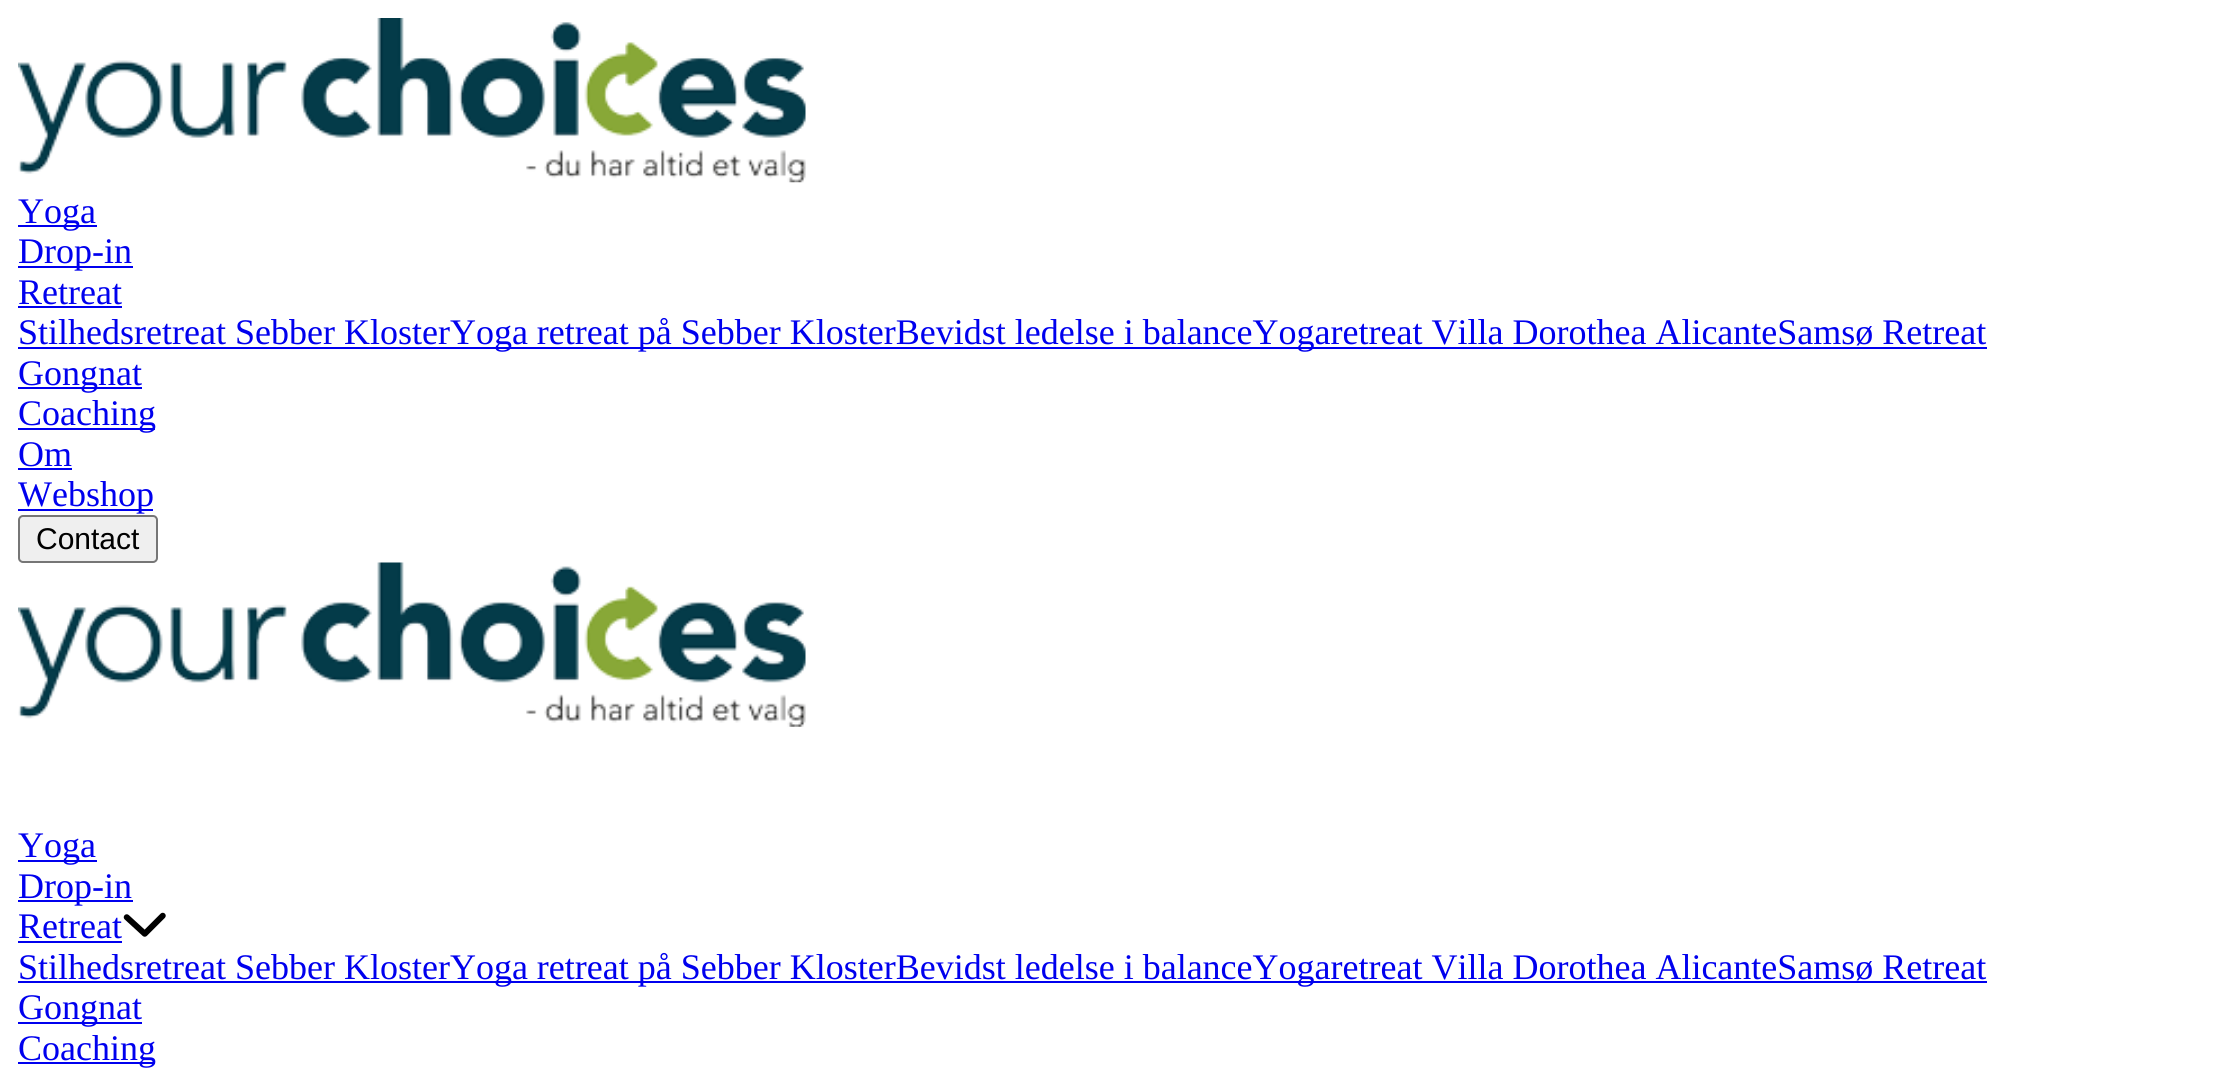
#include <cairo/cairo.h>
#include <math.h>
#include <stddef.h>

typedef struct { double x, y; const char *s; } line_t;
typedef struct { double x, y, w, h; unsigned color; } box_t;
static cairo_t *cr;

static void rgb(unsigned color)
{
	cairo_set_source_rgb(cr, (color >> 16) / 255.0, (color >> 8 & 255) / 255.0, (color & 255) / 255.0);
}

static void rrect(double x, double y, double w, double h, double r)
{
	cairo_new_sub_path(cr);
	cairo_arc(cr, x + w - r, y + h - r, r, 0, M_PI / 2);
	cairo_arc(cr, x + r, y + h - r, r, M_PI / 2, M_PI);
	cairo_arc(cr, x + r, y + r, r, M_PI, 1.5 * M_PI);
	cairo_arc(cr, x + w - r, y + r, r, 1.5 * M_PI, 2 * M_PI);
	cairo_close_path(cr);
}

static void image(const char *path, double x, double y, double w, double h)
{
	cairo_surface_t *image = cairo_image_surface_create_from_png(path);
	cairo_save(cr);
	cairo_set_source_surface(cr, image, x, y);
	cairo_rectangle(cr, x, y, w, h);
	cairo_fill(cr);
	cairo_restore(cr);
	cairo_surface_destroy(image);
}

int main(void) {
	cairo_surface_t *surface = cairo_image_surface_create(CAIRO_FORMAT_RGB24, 2238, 1083);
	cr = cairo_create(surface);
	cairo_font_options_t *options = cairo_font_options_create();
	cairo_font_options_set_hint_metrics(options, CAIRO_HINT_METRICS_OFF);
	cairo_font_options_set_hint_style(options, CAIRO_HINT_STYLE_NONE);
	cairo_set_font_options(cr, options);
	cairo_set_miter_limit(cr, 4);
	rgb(0xffffff);
	cairo_paint(cr);
	image("img/1.png", 18, 18, 788, 165);
	{
		static const box_t items[] = {
			{18, 225, 79, 2, 0x0000ee},
			{18, 266, 115, 2, 0x0000ee},
			{18, 306, 104, 2, 0x0000ee},
			{18, 347, 1969, 2, 0x0000ee},
			{18, 387, 124, 2, 0x0000ee},
			{18, 428, 137, 2, 0x0000ee},
			{18, 468, 54, 2, 0x0000ee},
			{18, 509, 135, 2, 0x0000ee},
		};
		for (size_t i = 0; i < sizeof items / sizeof *items; i++) {
			rgb(items[i].color);
			cairo_rectangle(cr, items[i].x, items[i].y, items[i].w, items[i].h);
			cairo_fill(cr);
		}
	}
	rgb(0xefefef);
	rrect(19, 516, 138, 46, 4);
	cairo_fill_preserve(cr);
	rgb(0x767676);
	cairo_stroke(cr);
	image("img/2.png", 18, 562, 788, 165);
	{
		static const box_t items[] = {
			{18, 860, 79, 2, 0x0000ee},
			{18, 900, 115, 2, 0x0000ee},
			{18, 941, 104, 2, 0x0000ee},
		};
		for (size_t i = 0; i < sizeof items / sizeof *items; i++) {
			rgb(items[i].color);
			cairo_rectangle(cr, items[i].x, items[i].y, items[i].w, items[i].h);
			cairo_fill(cr);
		}
	}
	image("img/3.png", 123, 912, 43, 25);
	{
		static const box_t items[] = {
			{18, 981, 1969, 2, 0x0000ee},
			{18, 1022, 124, 2, 0x0000ee},
			{18, 1062, 137, 2, 0x0000ee},
		};
		for (size_t i = 0; i < sizeof items / sizeof *items; i++) {
			rgb(items[i].color);
			cairo_rectangle(cr, items[i].x, items[i].y, items[i].w, items[i].h);
			cairo_fill(cr);
		}
	}
	cairo_select_font_face(cr, "Liberation Serif", CAIRO_FONT_SLANT_NORMAL, CAIRO_FONT_WEIGHT_NORMAL);
	cairo_set_font_size(cr, 36);
	{
		static const line_t items[] = {
			{18, 223, "Yoga"},
			{18, 263, "Drop-in"},
			{18, 304, "Retreat"},
			{18, 344, "Stilhedsretreat Sebber KlosterYoga retreat på Sebber KlosterBevidst ledelse i balanceYogaretreat Villa Dorothea AlicanteSamsø Retreat"},
			{18, 385, "Gongnat"},
			{18, 425, "Coaching"},
			{18, 466, "Om"},
			{18, 506, "Webshop"},
		};
		for (size_t i = 0; i < sizeof items / sizeof *items; i++) {
			cairo_move_to(cr, items[i].x, items[i].y);
			cairo_show_text(cr, items[i].s);
		}
	}
	cairo_select_font_face(cr, "Liberation Sans", CAIRO_FONT_SLANT_NORMAL, CAIRO_FONT_WEIGHT_NORMAL);
	cairo_set_font_size(cr, 30);
	rgb(0x000000);
	cairo_move_to(cr, 36, 549);
	cairo_show_text(cr, "Contact");
	cairo_select_font_face(cr, "Liberation Serif", CAIRO_FONT_SLANT_NORMAL, CAIRO_FONT_WEIGHT_NORMAL);
	cairo_set_font_size(cr, 36);
	rgb(0x0000ee);
	{
		static const line_t items[] = {
			{18, 857, "Yoga"},
			{18, 898, "Drop-in"},
			{18, 938, "Retreat"},
			{18, 979, "Stilhedsretreat Sebber KlosterYoga retreat på Sebber KlosterBevidst ledelse i balanceYogaretreat Villa Dorothea AlicanteSamsø Retreat"},
			{18, 1019, "Gongnat"},
			{18, 1060, "Coaching"},
		};
		for (size_t i = 0; i < sizeof items / sizeof *items; i++) {
			cairo_move_to(cr, items[i].x, items[i].y);
			cairo_show_text(cr, items[i].s);
		}
	}
	cairo_surface_write_to_png(surface, "page.png");
	cairo_font_options_destroy(options);
	cairo_destroy(cr);
	cairo_surface_destroy(surface);
	return 0;
}
